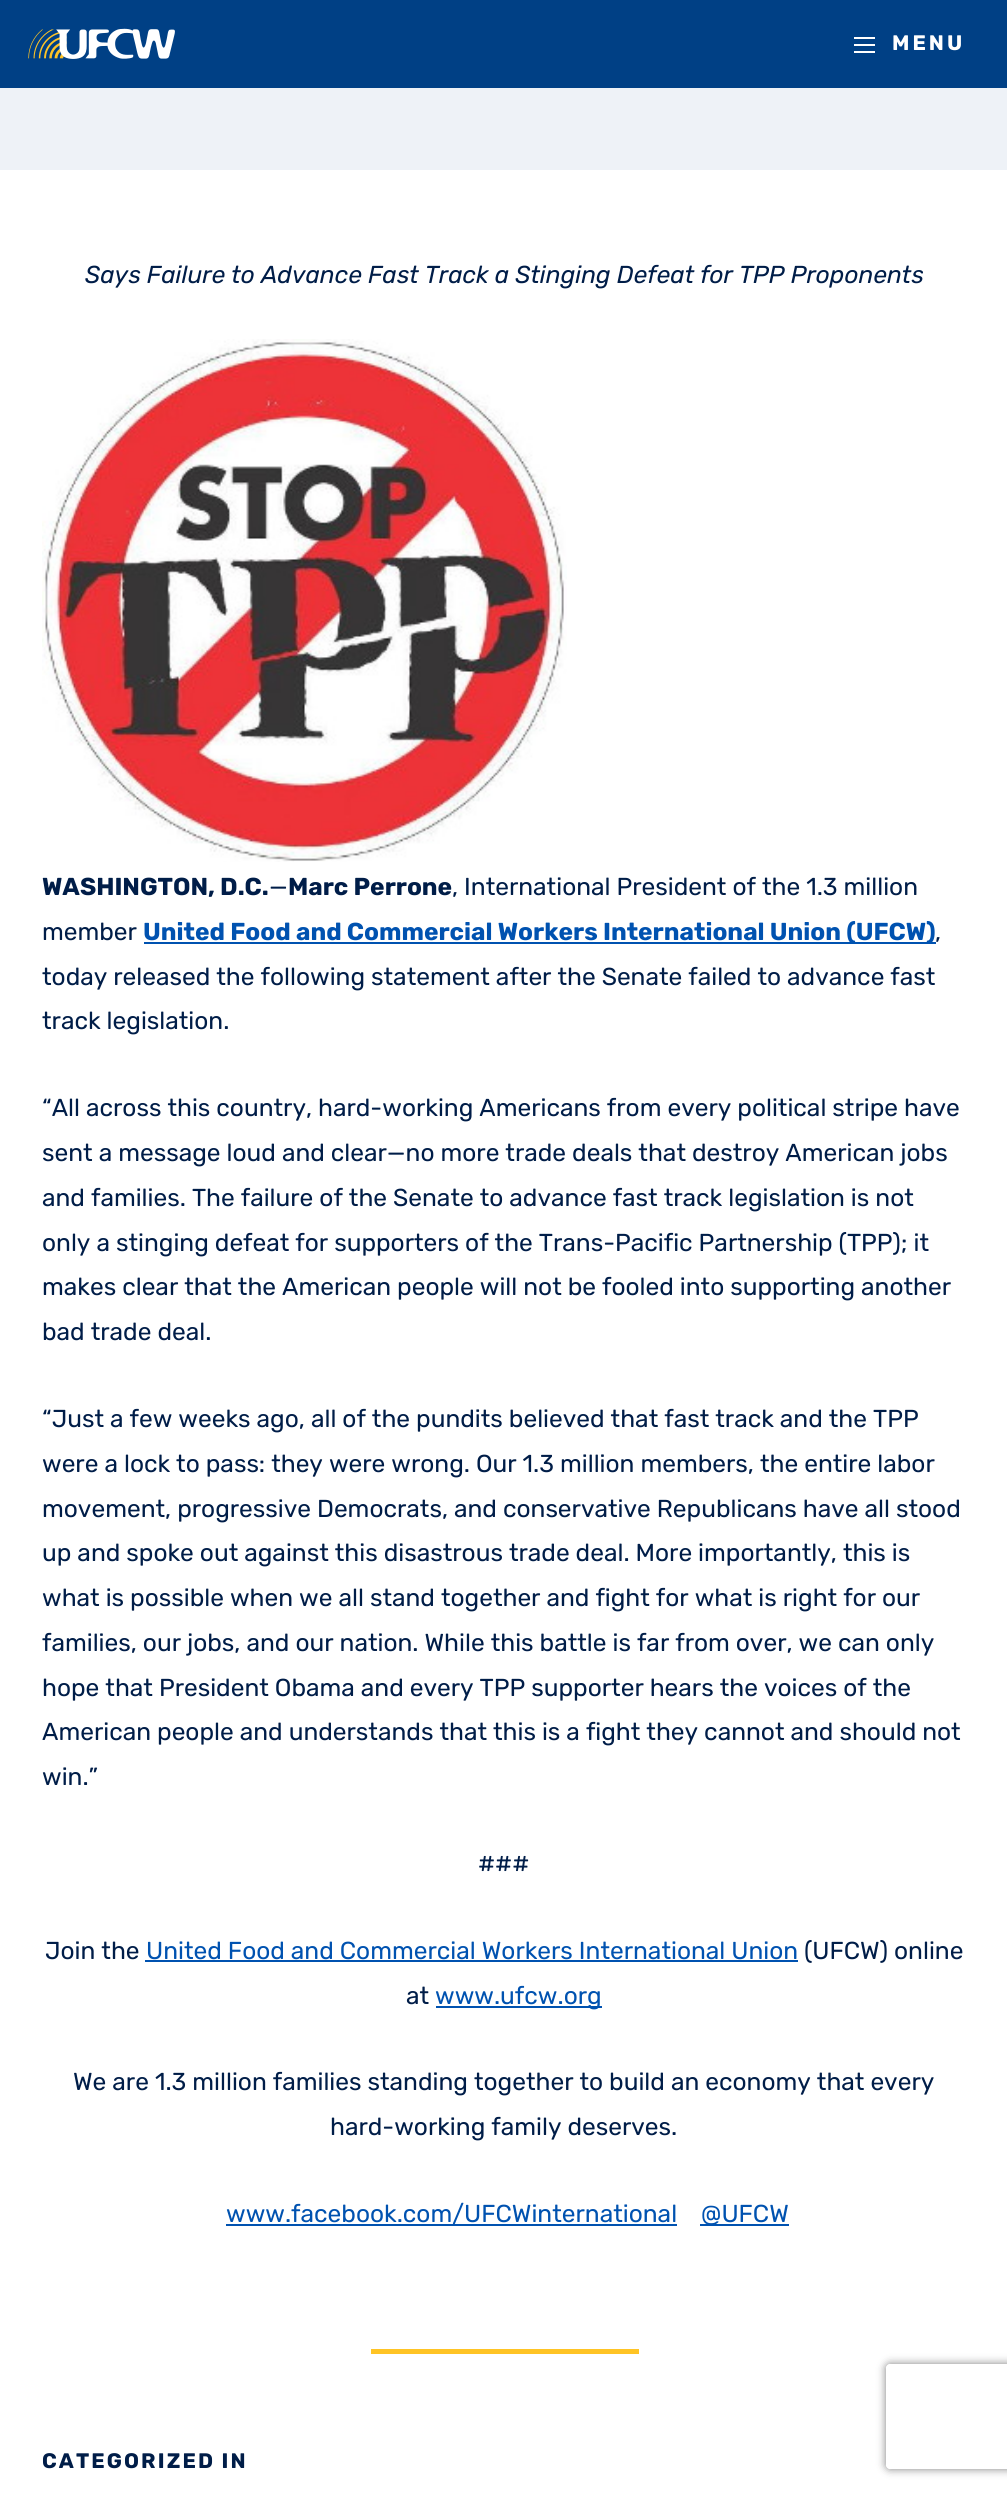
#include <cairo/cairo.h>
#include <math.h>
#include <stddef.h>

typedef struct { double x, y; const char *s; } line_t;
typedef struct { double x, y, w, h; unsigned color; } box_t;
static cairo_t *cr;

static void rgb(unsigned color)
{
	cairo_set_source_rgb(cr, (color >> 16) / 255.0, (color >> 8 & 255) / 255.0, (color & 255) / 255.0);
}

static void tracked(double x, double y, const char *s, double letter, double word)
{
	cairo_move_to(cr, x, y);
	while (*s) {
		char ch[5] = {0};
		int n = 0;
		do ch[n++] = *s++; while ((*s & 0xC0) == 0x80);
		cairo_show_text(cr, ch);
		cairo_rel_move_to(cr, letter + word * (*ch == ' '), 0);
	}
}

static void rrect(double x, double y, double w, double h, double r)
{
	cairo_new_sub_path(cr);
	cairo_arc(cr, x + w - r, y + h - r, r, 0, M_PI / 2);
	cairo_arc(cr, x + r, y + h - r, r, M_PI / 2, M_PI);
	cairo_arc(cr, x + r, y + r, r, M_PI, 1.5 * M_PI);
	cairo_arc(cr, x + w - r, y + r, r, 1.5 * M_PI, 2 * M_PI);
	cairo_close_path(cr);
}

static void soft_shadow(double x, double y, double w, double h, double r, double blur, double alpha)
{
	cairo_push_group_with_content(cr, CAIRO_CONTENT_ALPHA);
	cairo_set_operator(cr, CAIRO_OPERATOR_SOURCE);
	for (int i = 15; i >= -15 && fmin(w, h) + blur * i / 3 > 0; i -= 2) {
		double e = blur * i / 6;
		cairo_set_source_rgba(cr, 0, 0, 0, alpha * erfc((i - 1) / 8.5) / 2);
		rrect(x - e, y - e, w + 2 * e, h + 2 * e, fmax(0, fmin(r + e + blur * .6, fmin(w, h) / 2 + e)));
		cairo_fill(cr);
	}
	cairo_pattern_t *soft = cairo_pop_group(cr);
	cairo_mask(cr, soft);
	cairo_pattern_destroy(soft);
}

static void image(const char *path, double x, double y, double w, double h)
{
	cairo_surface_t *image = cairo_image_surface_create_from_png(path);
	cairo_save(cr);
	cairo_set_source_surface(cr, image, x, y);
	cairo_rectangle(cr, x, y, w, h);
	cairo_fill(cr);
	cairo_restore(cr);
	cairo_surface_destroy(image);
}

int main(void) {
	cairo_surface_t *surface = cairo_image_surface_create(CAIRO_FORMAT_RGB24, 1007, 2493);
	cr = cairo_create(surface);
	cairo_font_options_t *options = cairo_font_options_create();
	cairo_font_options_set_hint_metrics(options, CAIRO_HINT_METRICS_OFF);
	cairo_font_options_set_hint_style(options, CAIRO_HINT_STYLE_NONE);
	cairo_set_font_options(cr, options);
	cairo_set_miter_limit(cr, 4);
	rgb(0xffffff);
	cairo_paint(cr);
	rgb(0x004085);
	cairo_rectangle(cr, 0, 0, 1007, 88);
	cairo_fill(cr);
	image("img/1.png", 28, 28, 147, 31);
	{
		static const box_t items[] = {
			{854, 37, 21, 2, 0xffffff},
			{854, 44, 21, 2, 0xffffff},
			{854, 51, 21, 2, 0xffffff},
			{0, 88, 1007, 82, 0xeef2f7},
		};
		for (size_t i = 0; i < sizeof items / sizeof *items; i++) {
			rgb(items[i].color);
			cairo_rectangle(cr, items[i].x, items[i].y, items[i].w, items[i].h);
			cairo_fill(cr);
		}
	}
	image("img/2.png", 42, 339, 525, 523);
	{
		static const box_t items[] = {
			{144, 942, 792, 2, 0x0052b0},
			{145, 1960, 653, 2, 0x0052b0},
			{436, 2006, 166, 2, 0x0052b0},
			{226, 2224, 451, 2, 0x0052b0},
			{700, 2224, 89, 2, 0x0052b0},
			{371, 2349, 268, 5, 0xffc425},
		};
		for (size_t i = 0; i < sizeof items / sizeof *items; i++) {
			rgb(items[i].color);
			cairo_rectangle(cr, items[i].x, items[i].y, items[i].w, items[i].h);
			cairo_fill(cr);
		}
	}
	cairo_save(cr);
	cairo_set_fill_rule(cr, CAIRO_FILL_RULE_EVEN_ODD);
	cairo_new_path(cr);
	cairo_move_to(cr, 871, 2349);
	cairo_line_to(cr, 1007, 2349);
	cairo_line_to(cr, 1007, 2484);
	cairo_line_to(cr, 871, 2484);
	cairo_close_path(cr);
	cairo_move_to(cr, 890, 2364);
	cairo_line_to(cr, 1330, 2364);
	cairo_curve_to(cr, 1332, 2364, 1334, 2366, 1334, 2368);
	cairo_line_to(cr, 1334, 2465);
	cairo_curve_to(cr, 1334, 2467, 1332, 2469, 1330, 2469);
	cairo_line_to(cr, 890, 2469);
	cairo_curve_to(cr, 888, 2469, 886, 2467, 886, 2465);
	cairo_line_to(cr, 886, 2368);
	cairo_curve_to(cr, 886, 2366, 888, 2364, 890, 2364);
	cairo_close_path(cr);
	cairo_clip(cr);
	rgb(0x808080);
	soft_shadow(886, 2364, 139, 105, 4, 4.5, 1);
	cairo_restore(cr);
	cairo_select_font_face(cr, "Rubik", CAIRO_FONT_SLANT_NORMAL, CAIRO_FONT_WEIGHT_BOLD);
	cairo_set_font_size(cr, 21);
	rgb(0xffffff);
	tracked(892, 50, "MENU", 3, 0);
	cairo_select_font_face(cr, "Rubik", CAIRO_FONT_SLANT_ITALIC, CAIRO_FONT_WEIGHT_NORMAL);
	cairo_set_font_size(cr, 24.5);
	rgb(0x001d48);
	cairo_move_to(cr, 85, 283);
	cairo_show_text(cr, "Says Failure to Advance Fast Track a Stinging Defeat for TPP Proponents");
	cairo_select_font_face(cr, "Rubik", CAIRO_FONT_SLANT_NORMAL, CAIRO_FONT_WEIGHT_BOLD);
	cairo_move_to(cr, 42, 895);
	cairo_show_text(cr, "WASHINGTON, D.C.");
	cairo_select_font_face(cr, "Rubik", CAIRO_FONT_SLANT_NORMAL, CAIRO_FONT_WEIGHT_NORMAL);
	cairo_move_to(cr, 269, 895);
	cairo_show_text(cr, "—");
	cairo_select_font_face(cr, "Rubik", CAIRO_FONT_SLANT_NORMAL, CAIRO_FONT_WEIGHT_BOLD);
	cairo_move_to(cr, 288, 895);
	cairo_show_text(cr, "Marc Perrone");
	cairo_select_font_face(cr, "Rubik", CAIRO_FONT_SLANT_NORMAL, CAIRO_FONT_WEIGHT_NORMAL);
	cairo_move_to(cr, 452, 895);
	cairo_show_text(cr, ", International President of the 1.3 million");
	cairo_move_to(cr, 42, 940);
	cairo_show_text(cr, "member");
	cairo_select_font_face(cr, "Rubik", CAIRO_FONT_SLANT_NORMAL, CAIRO_FONT_WEIGHT_BOLD);
	rgb(0x0052b0);
	cairo_move_to(cr, 143, 940);
	cairo_show_text(cr, "United Food and Commercial Workers International Union (UFCW)");
	cairo_select_font_face(cr, "Rubik", CAIRO_FONT_SLANT_NORMAL, CAIRO_FONT_WEIGHT_NORMAL);
	rgb(0x001d48);
	{
		static const line_t items[] = {
			{935, 940, ","},
			{42, 985, "today released the following statement after the Senate failed to advance fast"},
			{42, 1029, "track legislation."},
			{42, 1116, "“All across this country, hard-working Americans from every political stripe have"},
			{42, 1161, "sent a message loud and clear—no more trade deals that destroy American jobs"},
			{42, 1206, "and families. The failure of the Senate to advance fast track legislation is not"},
			{42, 1251, "only a stinging defeat for supporters of the Trans-Pacific Partnership (TPP); it"},
			{42, 1295, "makes clear that the American people will not be fooled into supporting another"},
			{42, 1340, "bad trade deal."},
			{42, 1427, "“Just a few weeks ago, all of the pundits believed that fast track and the TPP"},
			{42, 1472, "were a lock to pass: they were wrong. Our 1.3 million members, the entire labor"},
			{42, 1517, "movement, progressive Democrats, and conservative Republicans have all stood"},
			{42, 1561, "up and spoke out against this disastrous trade deal. More importantly, this is"},
			{42, 1606, "what is possible when we all stand together and fight for what is right for our"},
			{42, 1651, "families, our jobs, and our nation. While this battle is far from over, we can only"},
			{42, 1696, "hope that President Obama and every TPP supporter hears the voices of the"},
			{42, 1740, "American people and understands that this is a fight they cannot and should not"},
			{42, 1785, "win.”"},
			{478, 1872, "###"},
			{45, 1959, "Join the"},
		};
		for (size_t i = 0; i < sizeof items / sizeof *items; i++) {
			cairo_move_to(cr, items[i].x, items[i].y);
			cairo_show_text(cr, items[i].s);
		}
	}
	rgb(0x0052b0);
	cairo_move_to(cr, 146, 1959);
	cairo_show_text(cr, "United Food and Commercial Workers International Union");
	rgb(0x001d48);
	cairo_move_to(cr, 804, 1959);
	cairo_show_text(cr, "(UFCW) online");
	cairo_move_to(cr, 406, 2004);
	cairo_show_text(cr, "at");
	rgb(0x0052b0);
	cairo_move_to(cr, 435, 2004);
	cairo_show_text(cr, "www.ufcw.org");
	rgb(0x001d48);
	cairo_move_to(cr, 73, 2090);
	cairo_show_text(cr, "We are 1.3 million families standing together to build an economy that every");
	cairo_move_to(cr, 330, 2135);
	cairo_show_text(cr, "hard-working family deserves.");
	rgb(0x0052b0);
	cairo_move_to(cr, 226, 2222);
	cairo_show_text(cr, "www.facebook.com/UFCWinternational");
	cairo_move_to(cr, 701, 2222);
	cairo_show_text(cr, "@UFCW");
	cairo_select_font_face(cr, "Rubik", CAIRO_FONT_SLANT_NORMAL, CAIRO_FONT_WEIGHT_BOLD);
	cairo_set_font_size(cr, 21);
	rgb(0x001d48);
	tracked(42, 2468, "CATEGORIZED IN", 2.1, 0);
	cairo_surface_write_to_png(surface, "page.png");
	cairo_font_options_destroy(options);
	cairo_destroy(cr);
	cairo_surface_destroy(surface);
	return 0;
}
